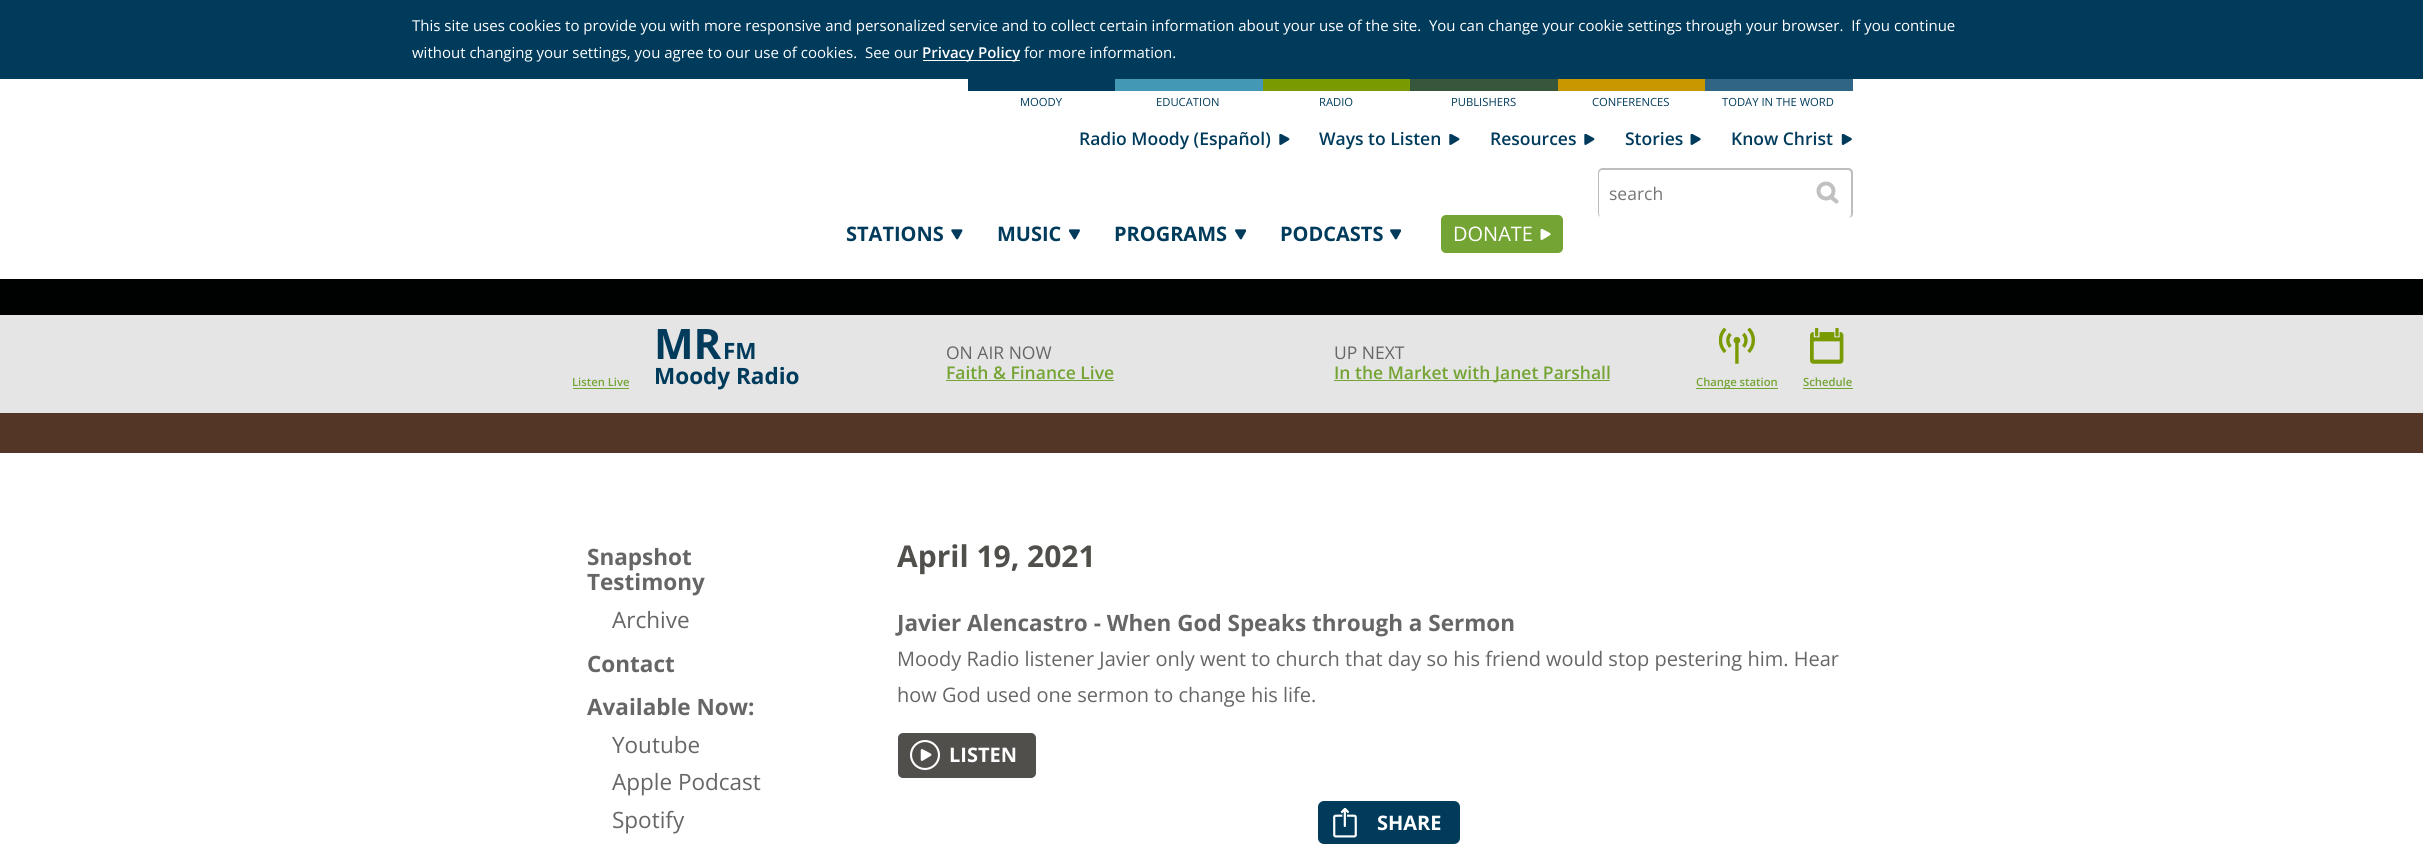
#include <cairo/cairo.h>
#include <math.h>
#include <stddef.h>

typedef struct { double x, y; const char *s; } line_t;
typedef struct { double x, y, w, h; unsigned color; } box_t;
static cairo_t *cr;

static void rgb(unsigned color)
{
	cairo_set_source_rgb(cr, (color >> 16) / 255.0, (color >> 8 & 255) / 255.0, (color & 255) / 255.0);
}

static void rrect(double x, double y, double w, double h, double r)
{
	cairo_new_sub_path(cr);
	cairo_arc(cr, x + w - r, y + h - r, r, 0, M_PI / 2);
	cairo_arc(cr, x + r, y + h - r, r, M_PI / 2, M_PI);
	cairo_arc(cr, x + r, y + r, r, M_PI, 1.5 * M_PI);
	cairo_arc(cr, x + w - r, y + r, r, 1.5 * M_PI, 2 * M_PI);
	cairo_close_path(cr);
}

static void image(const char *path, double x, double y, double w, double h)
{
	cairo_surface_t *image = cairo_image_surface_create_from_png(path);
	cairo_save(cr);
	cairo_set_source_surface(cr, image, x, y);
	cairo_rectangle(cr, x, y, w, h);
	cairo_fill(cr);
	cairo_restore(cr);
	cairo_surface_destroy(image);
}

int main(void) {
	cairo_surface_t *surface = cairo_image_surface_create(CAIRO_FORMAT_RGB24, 2423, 848);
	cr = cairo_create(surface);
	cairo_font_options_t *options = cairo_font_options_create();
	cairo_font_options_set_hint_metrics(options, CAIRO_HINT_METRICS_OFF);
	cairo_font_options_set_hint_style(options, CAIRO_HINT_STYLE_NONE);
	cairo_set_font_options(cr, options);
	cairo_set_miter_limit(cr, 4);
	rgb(0xffffff);
	cairo_paint(cr);
	{
		static const box_t items[] = {
			{0, 0, 2423, 79, 0x003b5c},
			{923, 60, 97, 1, 0xffffff},
			{968, 79, 147, 12, 0x003b5c},
			{1115, 79, 148, 12, 0x4298b5},
			{1263, 79, 147, 12, 0x7a9a01},
			{1410, 79, 148, 12, 0x36573b},
			{1558, 79, 147, 12, 0xc99700},
			{1705, 79, 148, 12, 0x316585},
		};
		for (size_t i = 0; i < sizeof items / sizeof *items; i++) {
			rgb(items[i].color);
			cairo_rectangle(cr, items[i].x, items[i].y, items[i].w, items[i].h);
			cairo_fill(cr);
		}
	}
	image("img/1.png", 1279, 134, 11, 11);
	image("img/1.png", 1449, 134, 11, 11);
	image("img/1.png", 1584, 134, 11, 11);
	image("img/2.png", 1690, 134, 11, 11);
	image("img/3.png", 1841, 134, 11, 11);
	image("img/4.png", 951, 229, 12, 11);
	image("img/5.png", 1069, 229, 11, 11);
	image("img/6.png", 1235, 229, 11, 11);
	image("img/6.png", 1390, 229, 11, 11);
	rgb(0x74a433);
	rrect(1441, 215, 122, 38, 5);
	cairo_fill(cr);
	image("img/7.png", 1540, 229, 11, 11);
	rgb(0xbdbdbd);
	cairo_new_path(cr);
	cairo_move_to(cr, 1602, 170);
	cairo_line_to(cr, 1848, 170);
	cairo_curve_to(cr, 1850, 170, 1851, 172, 1851, 174);
	cairo_line_to(cr, 1851, 214);
	cairo_curve_to(cr, 1851, 216, 1850, 218, 1848, 218);
	cairo_curve_to(cr, 1851, 218, 1853, 216, 1853, 213);
	cairo_line_to(cr, 1853, 173);
	cairo_curve_to(cr, 1853, 170, 1851, 168, 1848, 168);
	cairo_line_to(cr, 1603, 168);
	cairo_curve_to(cr, 1600, 168, 1598, 170, 1598, 173);
	cairo_line_to(cr, 1598, 213);
	cairo_curve_to(cr, 1598, 215, 1599, 216, 1600, 217);
	cairo_line_to(cr, 1599, 214);
	cairo_line_to(cr, 1599, 174);
	cairo_curve_to(cr, 1599, 172, 1600, 170, 1602, 170);
	cairo_close_path(cr);
	cairo_fill(cr);
	cairo_arc(cr, 1826, 191, 7.5, 0, 2 * M_PI);
	rgb(0xc0c0c0);
	cairo_set_line_width(cr, 4);
	cairo_stroke(cr);
	cairo_new_path(cr);
	cairo_move_to(cr, 1831, 197);
	cairo_line_to(cr, 1836.5, 201.5);
	cairo_set_line_cap(cr, CAIRO_LINE_CAP_ROUND);
	cairo_stroke(cr);
	{
		static const box_t items[] = {
			{0, 279, 2423, 36, 0x000201},
			{0, 315, 2423, 98, 0xe5e5e5},
			{573, 388, 56, 1, 0x74a433},
			{946, 380, 168, 1, 0x74a433},
			{1334, 380, 276, 1, 0x74a433},
		};
		for (size_t i = 0; i < sizeof items / sizeof *items; i++) {
			rgb(items[i].color);
			cairo_rectangle(cr, items[i].x, items[i].y, items[i].w, items[i].h);
			cairo_fill(cr);
		}
	}
	image("img/8.png", 1719, 328, 36, 36);
	cairo_rectangle(cr, 1696, 388, 82, 1);
	cairo_fill(cr);
	image("img/9.png", 1810, 328, 34, 36);
	cairo_rectangle(cr, 1803, 388, 50, 1);
	cairo_fill(cr);
	rgb(0x533626);
	cairo_rectangle(cr, 0, 413, 2423, 40);
	cairo_fill(cr);
	rgb(0x504f4b);
	rrect(898, 733, 138, 45, 5);
	cairo_fill(cr);
	image("img/10.png", 910, 740, 30, 30);
	rgb(0x003b5c);
	rrect(1318, 801, 142, 43, 6);
	cairo_fill(cr);
	image("img/11.png", 1333, 808, 24, 30);
	cairo_select_font_face(cr, "Open Sans", CAIRO_FONT_SLANT_NORMAL, CAIRO_FONT_WEIGHT_NORMAL);
	cairo_set_font_size(cr, 15);
	rgb(0xffffff);
	cairo_move_to(cr, 412, 31);
	cairo_show_text(cr, "This site uses cookies to provide you with more responsive and personalized service and to collect certain information about your use of the site.  You can change your cookie settings through your browser.  If you continue");
	cairo_move_to(cr, 412, 58);
	cairo_show_text(cr, "without changing your settings, you agree to our use of cookies.  See our");
	cairo_select_font_face(cr, "Open Sans SemiBold", CAIRO_FONT_SLANT_NORMAL, CAIRO_FONT_WEIGHT_NORMAL);
	cairo_move_to(cr, 922, 58);
	cairo_show_text(cr, "Privacy Policy");
	cairo_select_font_face(cr, "Open Sans", CAIRO_FONT_SLANT_NORMAL, CAIRO_FONT_WEIGHT_NORMAL);
	cairo_move_to(cr, 1024, 58);
	cairo_show_text(cr, "for more information.");
	cairo_set_font_size(cr, 11.25);
	rgb(0x003b5c);
	{
		static const line_t items[] = {
			{1020, 106, "MOODY"},
			{1156, 106, "EDUCATION"},
			{1319, 106, "RADIO"},
			{1451, 106, "PUBLISHERS"},
			{1592, 106, "CONFERENCES"},
			{1722, 106, "TODAY IN THE WORD"},
		};
		for (size_t i = 0; i < sizeof items / sizeof *items; i++) {
			cairo_move_to(cr, items[i].x, items[i].y);
			cairo_show_text(cr, items[i].s);
		}
	}
	cairo_select_font_face(cr, "Open Sans SemiBold", CAIRO_FONT_SLANT_NORMAL, CAIRO_FONT_WEIGHT_NORMAL);
	cairo_set_font_size(cr, 17.5);
	{
		static const line_t items[] = {
			{1079, 145, "Radio Moody (Español)"},
			{1319, 145, "Ways to Listen"},
			{1490, 145, "Resources"},
			{1625, 145, "Stories"},
			{1731, 145, "Know Christ"},
		};
		for (size_t i = 0; i < sizeof items / sizeof *items; i++) {
			cairo_move_to(cr, items[i].x, items[i].y);
			cairo_show_text(cr, items[i].s);
		}
	}
	cairo_select_font_face(cr, "Open Sans", CAIRO_FONT_SLANT_NORMAL, CAIRO_FONT_WEIGHT_BOLD);
	cairo_set_font_size(cr, 20);
	{
		static const line_t items[] = {
			{846, 241, "STATIONS"},
			{997, 241, "MUSIC"},
			{1114, 241, "PROGRAMS"},
			{1280, 241, "PODCASTS"},
		};
		for (size_t i = 0; i < sizeof items / sizeof *items; i++) {
			cairo_move_to(cr, items[i].x, items[i].y);
			cairo_show_text(cr, items[i].s);
		}
	}
	cairo_select_font_face(cr, "Open Sans", CAIRO_FONT_SLANT_NORMAL, CAIRO_FONT_WEIGHT_NORMAL);
	rgb(0xffffff);
	cairo_move_to(cr, 1453, 241);
	cairo_show_text(cr, "DONATE");
	cairo_set_font_size(cr, 17.5);
	rgb(0x757575);
	cairo_move_to(cr, 1609, 200);
	cairo_show_text(cr, "search");
	cairo_select_font_face(cr, "Open Sans SemiBold", CAIRO_FONT_SLANT_NORMAL, CAIRO_FONT_WEIGHT_NORMAL);
	cairo_set_font_size(cr, 11.25);
	rgb(0x74a433);
	cairo_move_to(cr, 572, 386);
	cairo_show_text(cr, "Listen Live");
	cairo_select_font_face(cr, "Open Sans", CAIRO_FONT_SLANT_NORMAL, CAIRO_FONT_WEIGHT_BOLD);
	cairo_set_font_size(cr, 42);
	rgb(0x003b5c);
	cairo_move_to(cr, 654, 359);
	cairo_show_text(cr, "MR");
	cairo_set_font_size(cr, 22.5);
	cairo_move_to(cr, 723, 359);
	cairo_show_text(cr, "FM");
	cairo_move_to(cr, 654, 384);
	cairo_show_text(cr, "Moody Radio");
	cairo_select_font_face(cr, "Open Sans", CAIRO_FONT_SLANT_NORMAL, CAIRO_FONT_WEIGHT_NORMAL);
	cairo_set_font_size(cr, 17.5);
	rgb(0x666666);
	cairo_move_to(cr, 946, 359);
	cairo_show_text(cr, "ON AIR NOW");
	cairo_select_font_face(cr, "Open Sans SemiBold", CAIRO_FONT_SLANT_NORMAL, CAIRO_FONT_WEIGHT_NORMAL);
	rgb(0x74a433);
	cairo_move_to(cr, 946, 379);
	cairo_show_text(cr, "Faith & Finance Live");
	cairo_select_font_face(cr, "Open Sans", CAIRO_FONT_SLANT_NORMAL, CAIRO_FONT_WEIGHT_NORMAL);
	rgb(0x666666);
	cairo_move_to(cr, 1334, 359);
	cairo_show_text(cr, "UP NEXT");
	cairo_select_font_face(cr, "Open Sans SemiBold", CAIRO_FONT_SLANT_NORMAL, CAIRO_FONT_WEIGHT_NORMAL);
	rgb(0x74a433);
	cairo_move_to(cr, 1334, 379);
	cairo_show_text(cr, "In the Market with Janet Parshall");
	cairo_set_font_size(cr, 11.25);
	cairo_move_to(cr, 1696, 386);
	cairo_show_text(cr, "Change station");
	cairo_move_to(cr, 1803, 386);
	cairo_show_text(cr, "Schedule");
	cairo_select_font_face(cr, "Open Sans", CAIRO_FONT_SLANT_NORMAL, CAIRO_FONT_WEIGHT_BOLD);
	cairo_set_font_size(cr, 22.5);
	rgb(0x666666);
	cairo_move_to(cr, 587, 565);
	cairo_show_text(cr, "Snapshot");
	cairo_move_to(cr, 587, 590);
	cairo_show_text(cr, "Testimony");
	cairo_select_font_face(cr, "Open Sans", CAIRO_FONT_SLANT_NORMAL, CAIRO_FONT_WEIGHT_NORMAL);
	cairo_move_to(cr, 612, 628);
	cairo_show_text(cr, "Archive");
	cairo_select_font_face(cr, "Open Sans", CAIRO_FONT_SLANT_NORMAL, CAIRO_FONT_WEIGHT_BOLD);
	cairo_move_to(cr, 587, 672);
	cairo_show_text(cr, "Contact");
	cairo_move_to(cr, 587, 715);
	cairo_show_text(cr, "Available Now:");
	cairo_select_font_face(cr, "Open Sans", CAIRO_FONT_SLANT_NORMAL, CAIRO_FONT_WEIGHT_NORMAL);
	{
		static const line_t items[] = {
			{612, 753, "Youtube"},
			{612, 790, "Apple Podcast"},
			{612, 828, "Spotify"},
		};
		for (size_t i = 0; i < sizeof items / sizeof *items; i++) {
			cairo_move_to(cr, items[i].x, items[i].y);
			cairo_show_text(cr, items[i].s);
		}
	}
	cairo_select_font_face(cr, "Open Sans", CAIRO_FONT_SLANT_NORMAL, CAIRO_FONT_WEIGHT_BOLD);
	cairo_set_font_size(cr, 30);
	rgb(0x504f4b);
	cairo_move_to(cr, 897, 567);
	cairo_show_text(cr, "April 19, 2021");
	cairo_set_font_size(cr, 22.5);
	rgb(0x666666);
	cairo_move_to(cr, 897, 631);
	cairo_show_text(cr, "Javier Alencastro - When God Speaks through a Sermon");
	cairo_select_font_face(cr, "Open Sans", CAIRO_FONT_SLANT_NORMAL, CAIRO_FONT_WEIGHT_NORMAL);
	cairo_set_font_size(cr, 20);
	cairo_move_to(cr, 897, 666);
	cairo_show_text(cr, "Moody Radio listener Javier only went to church that day so his friend would stop pestering him. Hear");
	cairo_move_to(cr, 897, 702);
	cairo_show_text(cr, "how God used one sermon to change his life.");
	cairo_select_font_face(cr, "Open Sans", CAIRO_FONT_SLANT_NORMAL, CAIRO_FONT_WEIGHT_BOLD);
	rgb(0xffffff);
	cairo_move_to(cr, 949, 762);
	cairo_show_text(cr, "LISTEN");
	cairo_move_to(cr, 1377, 830);
	cairo_show_text(cr, "SHARE");
	cairo_surface_write_to_png(surface, "page.png");
	cairo_font_options_destroy(options);
	cairo_destroy(cr);
	cairo_surface_destroy(surface);
	return 0;
}
